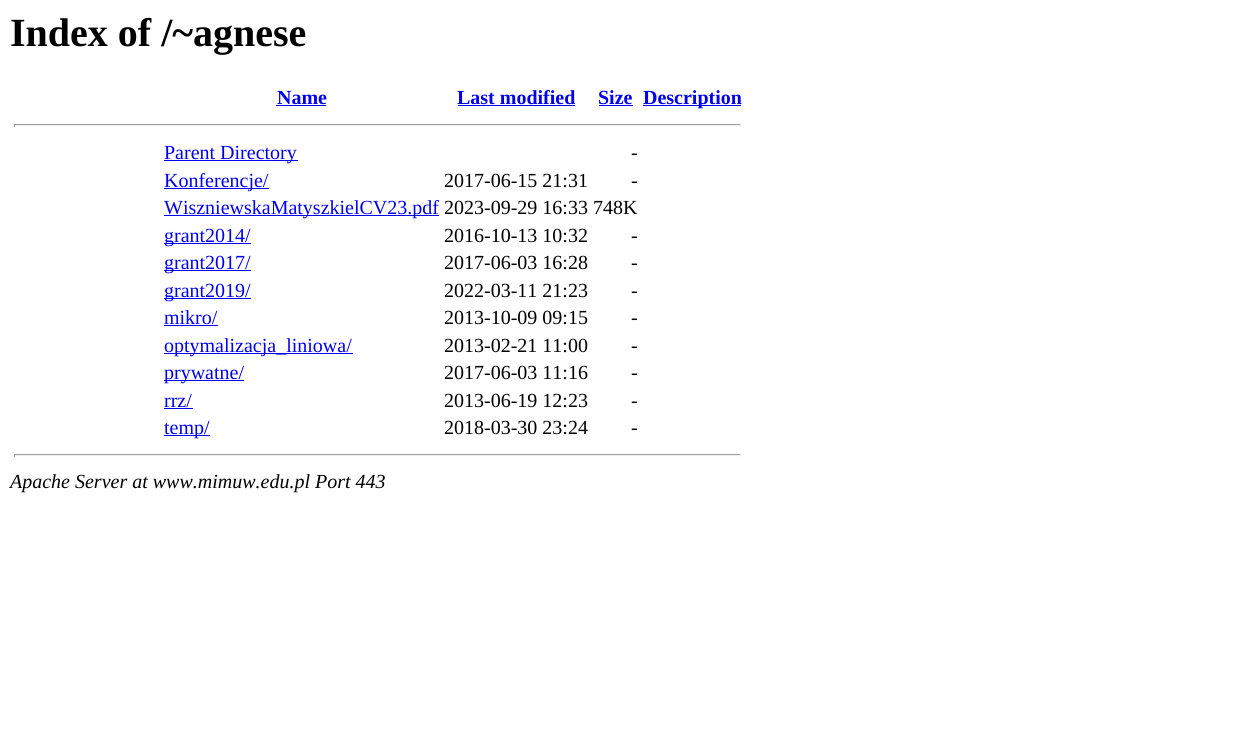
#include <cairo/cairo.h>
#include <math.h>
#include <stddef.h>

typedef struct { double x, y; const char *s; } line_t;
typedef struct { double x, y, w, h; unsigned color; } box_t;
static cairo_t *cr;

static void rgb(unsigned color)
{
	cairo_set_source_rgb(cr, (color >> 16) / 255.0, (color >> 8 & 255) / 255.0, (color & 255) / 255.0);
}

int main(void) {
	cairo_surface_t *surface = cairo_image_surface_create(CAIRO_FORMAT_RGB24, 1260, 753);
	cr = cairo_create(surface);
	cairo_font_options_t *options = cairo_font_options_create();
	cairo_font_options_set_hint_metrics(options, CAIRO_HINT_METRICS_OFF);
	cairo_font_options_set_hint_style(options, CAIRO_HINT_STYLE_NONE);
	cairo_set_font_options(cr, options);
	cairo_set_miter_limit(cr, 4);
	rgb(0xffffff);
	cairo_paint(cr);
	{
		static const box_t items[] = {
			{276, 105, 50, 1, 0x0000ee},
			{458, 105, 117, 1, 0x0000ee},
			{599, 105, 34, 1, 0x0000ee},
			{643, 105, 98, 1, 0x0000ee},
			{14, 124, 727, 1, 0x9f9f9f},
			{740, 124, 1, 3, 0xeeeeee},
			{14, 125, 727, 1, 0xeeeeee},
			{14, 124, 1, 3, 0x9f9f9f},
			{164, 160, 134, 1, 0x0000ee},
			{164, 188, 105, 1, 0x0000ee},
			{164, 215, 275, 1, 0x0000ee},
			{164, 243, 87, 1, 0x0000ee},
			{164, 270, 87, 1, 0x0000ee},
			{164, 298, 87, 1, 0x0000ee},
			{164, 325, 54, 1, 0x0000ee},
			{164, 353, 189, 1, 0x0000ee},
			{164, 380, 80, 1, 0x0000ee},
			{164, 408, 29, 1, 0x0000ee},
			{164, 435, 46, 1, 0x0000ee},
			{14, 454, 727, 1, 0x9f9f9f},
			{740, 454, 1, 3, 0xeeeeee},
			{14, 455, 727, 1, 0xeeeeee},
			{14, 454, 1, 3, 0x9f9f9f},
		};
		for (size_t i = 0; i < sizeof items / sizeof *items; i++) {
			rgb(items[i].color);
			cairo_rectangle(cr, items[i].x, items[i].y, items[i].w, items[i].h);
			cairo_fill(cr);
		}
	}
	cairo_select_font_face(cr, "Liberation Serif", CAIRO_FONT_SLANT_NORMAL, CAIRO_FONT_WEIGHT_BOLD);
	cairo_set_font_size(cr, 40);
	rgb(0x000000);
	cairo_move_to(cr, 10, 46);
	cairo_show_text(cr, "Index of /~agnese");
	cairo_set_font_size(cr, 20);
	rgb(0x0000ee);
	{
		static const line_t items[] = {
			{277, 104, "Name"},
			{457, 104, "Last modified"},
			{598, 104, "Size"},
			{643, 104, "Description"},
		};
		for (size_t i = 0; i < sizeof items / sizeof *items; i++) {
			cairo_move_to(cr, items[i].x, items[i].y);
			cairo_show_text(cr, items[i].s);
		}
	}
	cairo_select_font_face(cr, "Liberation Serif", CAIRO_FONT_SLANT_NORMAL, CAIRO_FONT_WEIGHT_NORMAL);
	cairo_move_to(cr, 164, 159);
	cairo_show_text(cr, "Parent Directory");
	rgb(0x000000);
	cairo_move_to(cr, 631, 159);
	cairo_show_text(cr, "-");
	rgb(0x0000ee);
	cairo_move_to(cr, 164, 187);
	cairo_show_text(cr, "Konferencje/");
	rgb(0x000000);
	cairo_move_to(cr, 444, 187);
	cairo_show_text(cr, "2017-06-15 21:31");
	cairo_move_to(cr, 631, 187);
	cairo_show_text(cr, "-");
	rgb(0x0000ee);
	cairo_move_to(cr, 164, 214);
	cairo_show_text(cr, "WiszniewskaMatyszkielCV23.pdf");
	rgb(0x000000);
	cairo_move_to(cr, 444, 214);
	cairo_show_text(cr, "2023-09-29 16:33 748K");
	rgb(0x0000ee);
	cairo_move_to(cr, 164, 242);
	cairo_show_text(cr, "grant2014/");
	rgb(0x000000);
	cairo_move_to(cr, 444, 242);
	cairo_show_text(cr, "2016-10-13 10:32");
	cairo_move_to(cr, 631, 242);
	cairo_show_text(cr, "-");
	rgb(0x0000ee);
	cairo_move_to(cr, 164, 269);
	cairo_show_text(cr, "grant2017/");
	rgb(0x000000);
	cairo_move_to(cr, 444, 269);
	cairo_show_text(cr, "2017-06-03 16:28");
	cairo_move_to(cr, 631, 269);
	cairo_show_text(cr, "-");
	rgb(0x0000ee);
	cairo_move_to(cr, 164, 297);
	cairo_show_text(cr, "grant2019/");
	rgb(0x000000);
	cairo_move_to(cr, 444, 297);
	cairo_show_text(cr, "2022-03-11 21:23");
	cairo_move_to(cr, 631, 297);
	cairo_show_text(cr, "-");
	rgb(0x0000ee);
	cairo_move_to(cr, 164, 324);
	cairo_show_text(cr, "mikro/");
	rgb(0x000000);
	cairo_move_to(cr, 444, 324);
	cairo_show_text(cr, "2013-10-09 09:15");
	cairo_move_to(cr, 631, 324);
	cairo_show_text(cr, "-");
	rgb(0x0000ee);
	cairo_move_to(cr, 164, 352);
	cairo_show_text(cr, "optymalizacja_liniowa/");
	rgb(0x000000);
	cairo_move_to(cr, 444, 352);
	cairo_show_text(cr, "2013-02-21 11:00");
	cairo_move_to(cr, 631, 352);
	cairo_show_text(cr, "-");
	rgb(0x0000ee);
	cairo_move_to(cr, 164, 379);
	cairo_show_text(cr, "prywatne/");
	rgb(0x000000);
	cairo_move_to(cr, 444, 379);
	cairo_show_text(cr, "2017-06-03 11:16");
	cairo_move_to(cr, 631, 379);
	cairo_show_text(cr, "-");
	rgb(0x0000ee);
	cairo_move_to(cr, 164, 407);
	cairo_show_text(cr, "rrz/");
	rgb(0x000000);
	cairo_move_to(cr, 444, 407);
	cairo_show_text(cr, "2013-06-19 12:23");
	cairo_move_to(cr, 631, 407);
	cairo_show_text(cr, "-");
	rgb(0x0000ee);
	cairo_move_to(cr, 164, 434);
	cairo_show_text(cr, "temp/");
	rgb(0x000000);
	cairo_move_to(cr, 444, 434);
	cairo_show_text(cr, "2018-03-30 23:24");
	cairo_move_to(cr, 631, 434);
	cairo_show_text(cr, "-");
	cairo_select_font_face(cr, "Liberation Serif", CAIRO_FONT_SLANT_ITALIC, CAIRO_FONT_WEIGHT_NORMAL);
	cairo_move_to(cr, 10, 488);
	cairo_show_text(cr, "Apache Server at www.mimuw.edu.pl Port 443");
	cairo_surface_write_to_png(surface, "page.png");
	cairo_font_options_destroy(options);
	cairo_destroy(cr);
	cairo_surface_destroy(surface);
	return 0;
}
